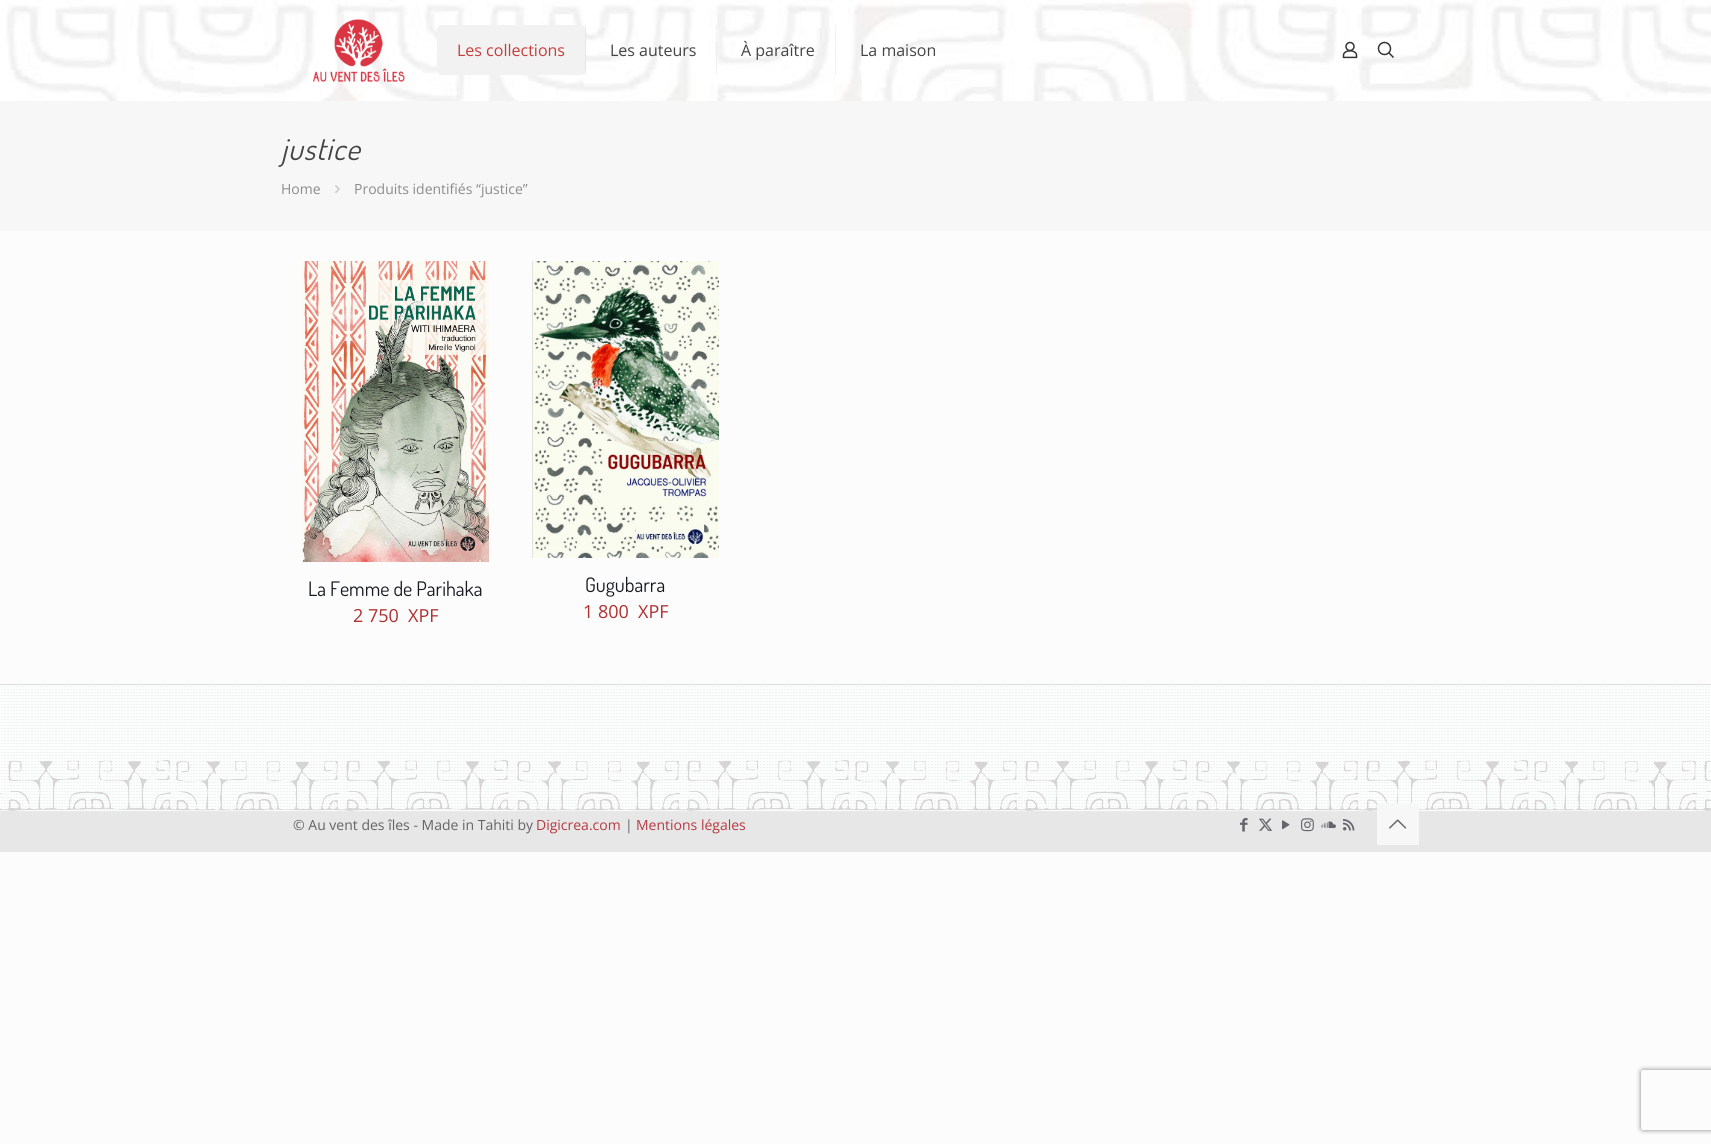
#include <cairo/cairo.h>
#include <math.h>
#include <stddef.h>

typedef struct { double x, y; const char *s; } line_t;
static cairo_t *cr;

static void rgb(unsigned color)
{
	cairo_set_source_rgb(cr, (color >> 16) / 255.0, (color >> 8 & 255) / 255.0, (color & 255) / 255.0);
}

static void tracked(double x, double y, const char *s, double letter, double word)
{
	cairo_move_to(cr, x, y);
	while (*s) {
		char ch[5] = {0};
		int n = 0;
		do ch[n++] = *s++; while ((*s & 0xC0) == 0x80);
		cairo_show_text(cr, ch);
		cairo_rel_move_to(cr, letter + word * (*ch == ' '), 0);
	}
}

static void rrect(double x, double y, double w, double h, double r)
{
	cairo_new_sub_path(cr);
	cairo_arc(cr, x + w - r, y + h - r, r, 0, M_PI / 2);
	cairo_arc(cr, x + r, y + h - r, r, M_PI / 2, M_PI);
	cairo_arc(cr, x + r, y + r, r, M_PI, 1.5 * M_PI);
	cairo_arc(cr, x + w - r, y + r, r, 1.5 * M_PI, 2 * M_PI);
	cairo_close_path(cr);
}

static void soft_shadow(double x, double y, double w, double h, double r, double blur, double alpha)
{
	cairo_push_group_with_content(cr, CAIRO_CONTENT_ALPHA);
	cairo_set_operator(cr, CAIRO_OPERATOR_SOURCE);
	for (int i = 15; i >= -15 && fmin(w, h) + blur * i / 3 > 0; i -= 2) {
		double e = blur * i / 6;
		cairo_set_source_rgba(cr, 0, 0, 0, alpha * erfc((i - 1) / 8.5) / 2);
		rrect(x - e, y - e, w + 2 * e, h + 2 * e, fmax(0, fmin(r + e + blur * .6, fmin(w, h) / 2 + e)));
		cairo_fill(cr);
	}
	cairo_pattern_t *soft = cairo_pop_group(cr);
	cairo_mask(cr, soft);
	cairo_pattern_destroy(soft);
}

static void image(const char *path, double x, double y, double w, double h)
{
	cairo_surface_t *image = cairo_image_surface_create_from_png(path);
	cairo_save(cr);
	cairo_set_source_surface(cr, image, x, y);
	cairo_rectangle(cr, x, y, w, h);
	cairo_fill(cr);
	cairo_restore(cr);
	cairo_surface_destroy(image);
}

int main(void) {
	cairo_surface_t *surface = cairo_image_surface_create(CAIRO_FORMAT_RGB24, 1711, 1144);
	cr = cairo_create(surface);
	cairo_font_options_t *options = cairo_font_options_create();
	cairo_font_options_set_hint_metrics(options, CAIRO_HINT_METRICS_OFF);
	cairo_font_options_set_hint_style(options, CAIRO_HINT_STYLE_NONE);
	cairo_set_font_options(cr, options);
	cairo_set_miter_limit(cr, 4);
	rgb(0xfcfcfc);
	cairo_paint(cr);
	rgb(0xffffff);
	cairo_rectangle(cr, 0, 0, 6, 101);
	cairo_fill(cr);
	image("img/1.png", 6, 0, 1705, 101);
	image("img/2.png", 313, 19, 92, 63);
	rgb(0xf2f2f2);
	rrect(437, 25, 149, 50, 5);
	cairo_fill(cr);
	cairo_set_source_rgba(cr, 0, 0, 0, 0.05);
	cairo_rectangle(cr, 585, 25, 1, 50);
	cairo_fill(cr);
	cairo_rectangle(cr, 716, 25, 1, 50);
	cairo_fill(cr);
	rgb(0xf2f2f2);
	cairo_rectangle(cr, 835, 25, 1, 50);
	cairo_fill(cr);
	image("img/3.png", 1342, 41, 16, 18);
	cairo_arc(cr, 1384.5, 48.5, 6, 0, 2 * M_PI);
	rgb(0x333333);
	cairo_set_line_width(cr, 1.5);
	cairo_stroke(cr);
	cairo_new_path(cr);
	cairo_move_to(cr, 1388.5, 52.5);
	cairo_line_to(cr, 1393.5, 57.5);
	cairo_stroke(cr);
	rgb(0xf7f7f7);
	cairo_rectangle(cr, 0, 101, 1711, 130);
	cairo_fill(cr);
	image("img/4.png", 335, 185, 5, 8);
	image("img/5.png", 302, 261, 187, 301);
	image("img/6.png", 532, 261, 187, 297);
	rgb(0xffffff);
	cairo_rectangle(cr, 0, 685, 1711, 126);
	cairo_fill(cr);
	image("img/7.png", 1, 686, 1709, 125);
	rgb(0xdcdcdc);
	cairo_rectangle(cr, 0, 684, 1711, 1);
	cairo_fill(cr);
	image("img/8.png", 0, 760, 1711, 51);
	rgb(0xe7e7e7);
	cairo_rectangle(cr, 0, 812, 1711, 40);
	cairo_fill(cr);
	rgb(0xe9e9e9);
	cairo_rectangle(cr, 0, 811, 1711, 1);
	cairo_fill(cr);
	image("img/9.png", 1240, 818, 8, 14);
	image("img/10.png", 1258, 818, 15, 13);
	image("img/11.png", 1282, 820, 8, 10);
	image("img/12.png", 1301, 818, 13, 14);
	image("img/13.png", 1321, 821, 15, 8);
	image("img/14.png", 1343, 819, 12, 12);
	rgb(0xf7f7f7);
	cairo_rectangle(cr, 1377, 803, 42, 42);
	cairo_fill(cr);
	image("img/15.png", 1389, 819, 18, 10);
	cairo_save(cr);
	cairo_set_fill_rule(cr, CAIRO_FILL_RULE_EVEN_ODD);
	cairo_new_path(cr);
	cairo_move_to(cr, 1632, 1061);
	cairo_line_to(cr, 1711, 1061);
	cairo_line_to(cr, 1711, 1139);
	cairo_line_to(cr, 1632, 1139);
	cairo_close_path(cr);
	cairo_move_to(cr, 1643, 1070);
	cairo_line_to(cr, 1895, 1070);
	cairo_curve_to(cr, 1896, 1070, 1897, 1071, 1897, 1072);
	cairo_line_to(cr, 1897, 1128);
	cairo_curve_to(cr, 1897, 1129, 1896, 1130, 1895, 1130);
	cairo_line_to(cr, 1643, 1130);
	cairo_curve_to(cr, 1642, 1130, 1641, 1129, 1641, 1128);
	cairo_line_to(cr, 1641, 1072);
	cairo_curve_to(cr, 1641, 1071, 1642, 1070, 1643, 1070);
	cairo_close_path(cr);
	cairo_clip(cr);
	rgb(0x808080);
	soft_shadow(1641, 1070, 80, 60, 2, 2.5, 1);
	cairo_restore(cr);
	cairo_select_font_face(cr, "Open Sans", CAIRO_FONT_SLANT_NORMAL, CAIRO_FONT_WEIGHT_NORMAL);
	cairo_set_font_size(cr, 16);
	rgb(0xc83c3c);
	cairo_move_to(cr, 457, 56);
	cairo_show_text(cr, "Les collections");
	rgb(0x444444);
	{
		static const line_t items[] = {
			{610, 56, "Les auteurs"},
			{741, 56, "À paraître"},
			{860, 56, "La maison"},
		};
		for (size_t i = 0; i < sizeof items / sizeof *items; i++) {
			cairo_move_to(cr, items[i].x, items[i].y);
			cairo_show_text(cr, items[i].s);
		}
	}
	cairo_select_font_face(cr, "Dosis", CAIRO_FONT_SLANT_ITALIC, CAIRO_FONT_WEIGHT_NORMAL);
	cairo_set_font_size(cr, 30);
	tracked(281, 160, "justice", 1, 0);
	cairo_select_font_face(cr, "Open Sans", CAIRO_FONT_SLANT_NORMAL, CAIRO_FONT_WEIGHT_NORMAL);
	cairo_set_font_size(cr, 14);
	rgb(0x8c8c8c);
	cairo_move_to(cr, 281, 194);
	cairo_show_text(cr, "Home");
	cairo_move_to(cr, 354, 194);
	cairo_show_text(cr, "Produits identifiés “justice”");
	cairo_select_font_face(cr, "Dosis", CAIRO_FONT_SLANT_NORMAL, CAIRO_FONT_WEIGHT_NORMAL);
	cairo_set_font_size(cr, 20);
	rgb(0x161922);
	cairo_move_to(cr, 308, 596);
	cairo_show_text(cr, "La Femme de Parihaka");
	cairo_select_font_face(cr, "Open Sans", CAIRO_FONT_SLANT_NORMAL, CAIRO_FONT_WEIGHT_NORMAL);
	cairo_set_font_size(cr, 18);
	rgb(0xb03030);
	cairo_move_to(cr, 353, 622);
	cairo_show_text(cr, "2 750");
	cairo_move_to(cr, 408, 622);
	cairo_show_text(cr, "XPF");
	cairo_select_font_face(cr, "Dosis", CAIRO_FONT_SLANT_NORMAL, CAIRO_FONT_WEIGHT_NORMAL);
	cairo_set_font_size(cr, 20);
	rgb(0x161922);
	cairo_move_to(cr, 585, 592);
	cairo_show_text(cr, "Gugubarra");
	cairo_select_font_face(cr, "Open Sans", CAIRO_FONT_SLANT_NORMAL, CAIRO_FONT_WEIGHT_NORMAL);
	cairo_set_font_size(cr, 18);
	rgb(0xb03030);
	cairo_move_to(cr, 583, 618);
	cairo_show_text(cr, "1 800");
	cairo_move_to(cr, 638, 618);
	cairo_show_text(cr, "XPF");
	cairo_set_font_size(cr, 14);
	rgb(0x636363);
	cairo_move_to(cr, 293, 830);
	cairo_show_text(cr, "© Au vent des îles - Made in Tahiti by");
	rgb(0xb53a41);
	cairo_move_to(cr, 536, 830);
	cairo_show_text(cr, "Digicrea.com");
	rgb(0x636363);
	cairo_move_to(cr, 625, 830);
	cairo_show_text(cr, "|");
	rgb(0xb53a41);
	cairo_move_to(cr, 636, 830);
	cairo_show_text(cr, "Mentions légales");
	cairo_surface_write_to_png(surface, "page.png");
	cairo_font_options_destroy(options);
	cairo_destroy(cr);
	cairo_surface_destroy(surface);
	return 0;
}
